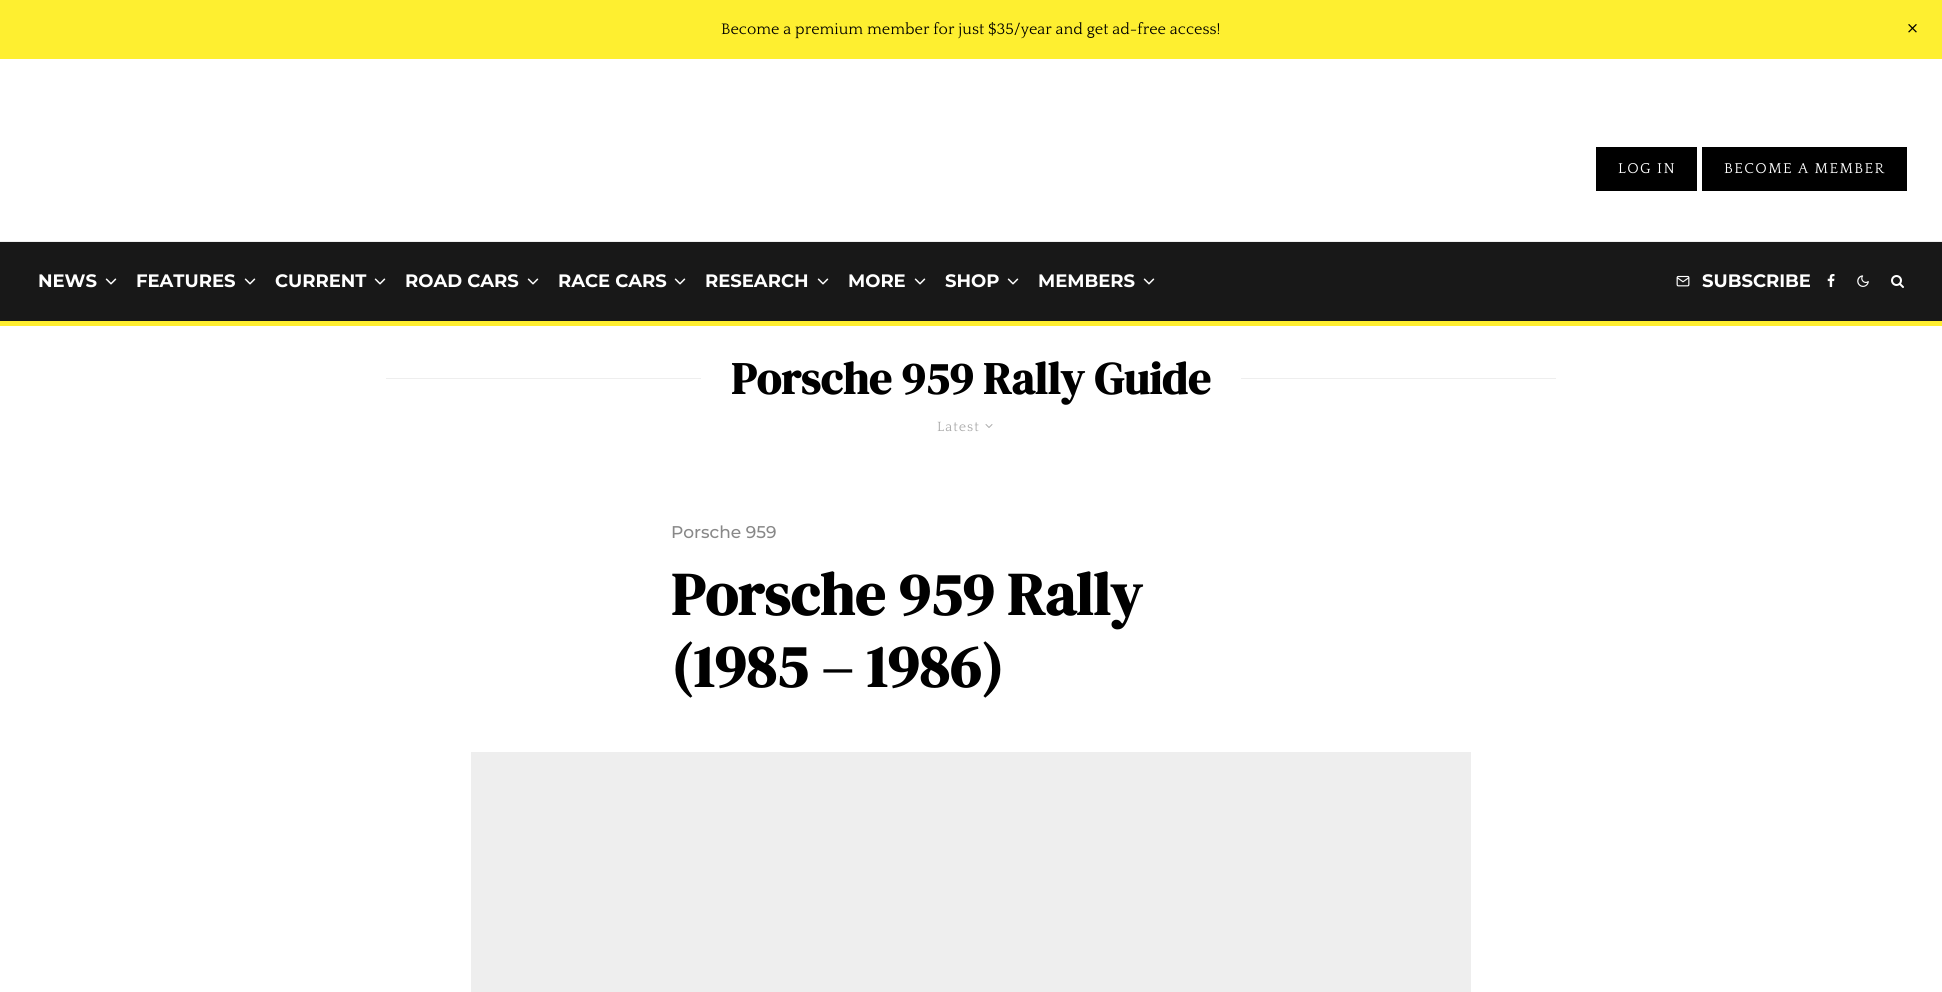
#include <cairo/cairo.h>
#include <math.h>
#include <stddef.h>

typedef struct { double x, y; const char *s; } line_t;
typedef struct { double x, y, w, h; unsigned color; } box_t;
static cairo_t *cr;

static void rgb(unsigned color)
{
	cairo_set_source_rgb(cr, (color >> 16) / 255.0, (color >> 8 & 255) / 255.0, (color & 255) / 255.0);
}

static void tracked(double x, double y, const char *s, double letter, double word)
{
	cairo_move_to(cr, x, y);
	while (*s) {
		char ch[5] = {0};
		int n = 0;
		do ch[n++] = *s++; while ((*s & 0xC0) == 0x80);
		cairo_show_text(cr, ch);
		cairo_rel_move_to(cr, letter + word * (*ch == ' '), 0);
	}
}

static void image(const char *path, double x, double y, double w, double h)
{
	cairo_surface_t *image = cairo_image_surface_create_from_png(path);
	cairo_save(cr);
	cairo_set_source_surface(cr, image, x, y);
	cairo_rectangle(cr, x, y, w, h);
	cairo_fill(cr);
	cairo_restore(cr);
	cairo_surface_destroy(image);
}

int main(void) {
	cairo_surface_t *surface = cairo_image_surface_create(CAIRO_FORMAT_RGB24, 1942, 992);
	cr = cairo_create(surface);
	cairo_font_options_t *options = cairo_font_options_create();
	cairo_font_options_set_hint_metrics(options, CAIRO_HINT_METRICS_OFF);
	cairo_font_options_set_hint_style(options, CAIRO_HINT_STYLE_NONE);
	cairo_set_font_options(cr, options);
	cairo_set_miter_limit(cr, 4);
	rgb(0xffffff);
	cairo_paint(cr);
	rgb(0xfeef30);
	cairo_rectangle(cr, 0, 0, 1942, 59);
	cairo_fill(cr);
	image("img/1.png", 1908, 24, 9, 9);
	{
		static const box_t items[] = {
			{1596, 147, 101, 44, 0x000000},
			{1702, 147, 205, 44, 0x000000},
			{0, 242, 1942, 79, 0x181818},
			{0, 241, 1942, 1, 0xeeeeee},
			{0, 321, 1942, 5, 0xffee30},
		};
		for (size_t i = 0; i < sizeof items / sizeof *items; i++) {
			rgb(items[i].color);
			cairo_rectangle(cr, items[i].x, items[i].y, items[i].w, items[i].h);
			cairo_fill(cr);
		}
	}
	image("img/2.png", 105, 278, 12, 7);
	image("img/2.png", 244, 278, 12, 7);
	image("img/2.png", 374, 278, 12, 7);
	image("img/2.png", 527, 278, 12, 7);
	image("img/2.png", 674, 278, 12, 7);
	image("img/2.png", 817, 278, 12, 7);
	image("img/2.png", 914, 278, 12, 7);
	image("img/2.png", 1007, 278, 12, 7);
	image("img/2.png", 1143, 278, 12, 7);
	image("img/3.png", 1676, 275, 14, 12);
	image("img/4.png", 1827, 274, 8, 13);
	image("img/5.png", 1857, 275, 12, 12);
	image("img/6.png", 1891, 275, 13, 13);
	rgb(0xeeeeee);
	cairo_rectangle(cr, 386, 378, 315, 1);
	cairo_fill(cr);
	cairo_rectangle(cr, 1241, 378, 315, 1);
	cairo_fill(cr);
	image("img/7.png", 985, 424, 8, 4);
	cairo_rectangle(cr, 471, 752, 1000, 240);
	cairo_fill(cr);
	cairo_select_font_face(cr, "Quattrocento", CAIRO_FONT_SLANT_NORMAL, CAIRO_FONT_WEIGHT_NORMAL);
	cairo_set_font_size(cr, 16);
	rgb(0x000000);
	cairo_move_to(cr, 721, 34);
	cairo_show_text(cr, "Become a premium member for just $35/year and get ad-free access!");
	cairo_set_font_size(cr, 15);
	rgb(0xffffff);
	tracked(1618, 173, "LOG IN", 1.4, 0);
	tracked(1724, 173, "BECOME A MEMBER", 1.4, 0);
	cairo_select_font_face(cr, "Montserrat", CAIRO_FONT_SLANT_NORMAL, CAIRO_FONT_WEIGHT_BOLD);
	cairo_set_font_size(cr, 18);
	{
		static const line_t items[] = {
			{38, 287, "NEWS"},
			{136, 287, "FEATURES"},
			{275, 287, "CURRENT"},
			{405, 287, "ROAD CARS"},
			{558, 287, "RACE CARS"},
			{705, 287, "RESEARCH"},
			{848, 287, "MORE"},
			{945, 287, "SHOP"},
			{1038, 287, "MEMBERS"},
			{1702, 287, "SUBSCRIBE"},
		};
		for (size_t i = 0; i < sizeof items / sizeof *items; i++) {
			cairo_move_to(cr, items[i].x, items[i].y);
			cairo_show_text(cr, items[i].s);
		}
	}
	cairo_select_font_face(cr, "DM Serif Display", CAIRO_FONT_SLANT_NORMAL, CAIRO_FONT_WEIGHT_BOLD);
	cairo_set_font_size(cr, 45);
	rgb(0x000000);
	cairo_move_to(cr, 731, 394);
	cairo_show_text(cr, "Porsche 959 Rally Guide");
	cairo_select_font_face(cr, "Quattrocento", CAIRO_FONT_SLANT_NORMAL, CAIRO_FONT_WEIGHT_NORMAL);
	cairo_set_font_size(cr, 14);
	rgb(0xaaaaaa);
	tracked(937, 431, "Latest", 1, 0);
	cairo_select_font_face(cr, "Montserrat Medium", CAIRO_FONT_SLANT_NORMAL, CAIRO_FONT_WEIGHT_NORMAL);
	cairo_set_font_size(cr, 17);
	rgb(0x888888);
	cairo_move_to(cr, 671, 538);
	cairo_show_text(cr, "Porsche 959");
	cairo_select_font_face(cr, "DM Serif Display", CAIRO_FONT_SLANT_NORMAL, CAIRO_FONT_WEIGHT_BOLD);
	cairo_set_font_size(cr, 60);
	rgb(0x000000);
	cairo_move_to(cr, 671, 615);
	cairo_show_text(cr, "Porsche 959 Rally");
	cairo_move_to(cr, 671, 687);
	cairo_show_text(cr, "(1985 – 1986)");
	cairo_surface_write_to_png(surface, "page.png");
	cairo_font_options_destroy(options);
	cairo_destroy(cr);
	cairo_surface_destroy(surface);
	return 0;
}
